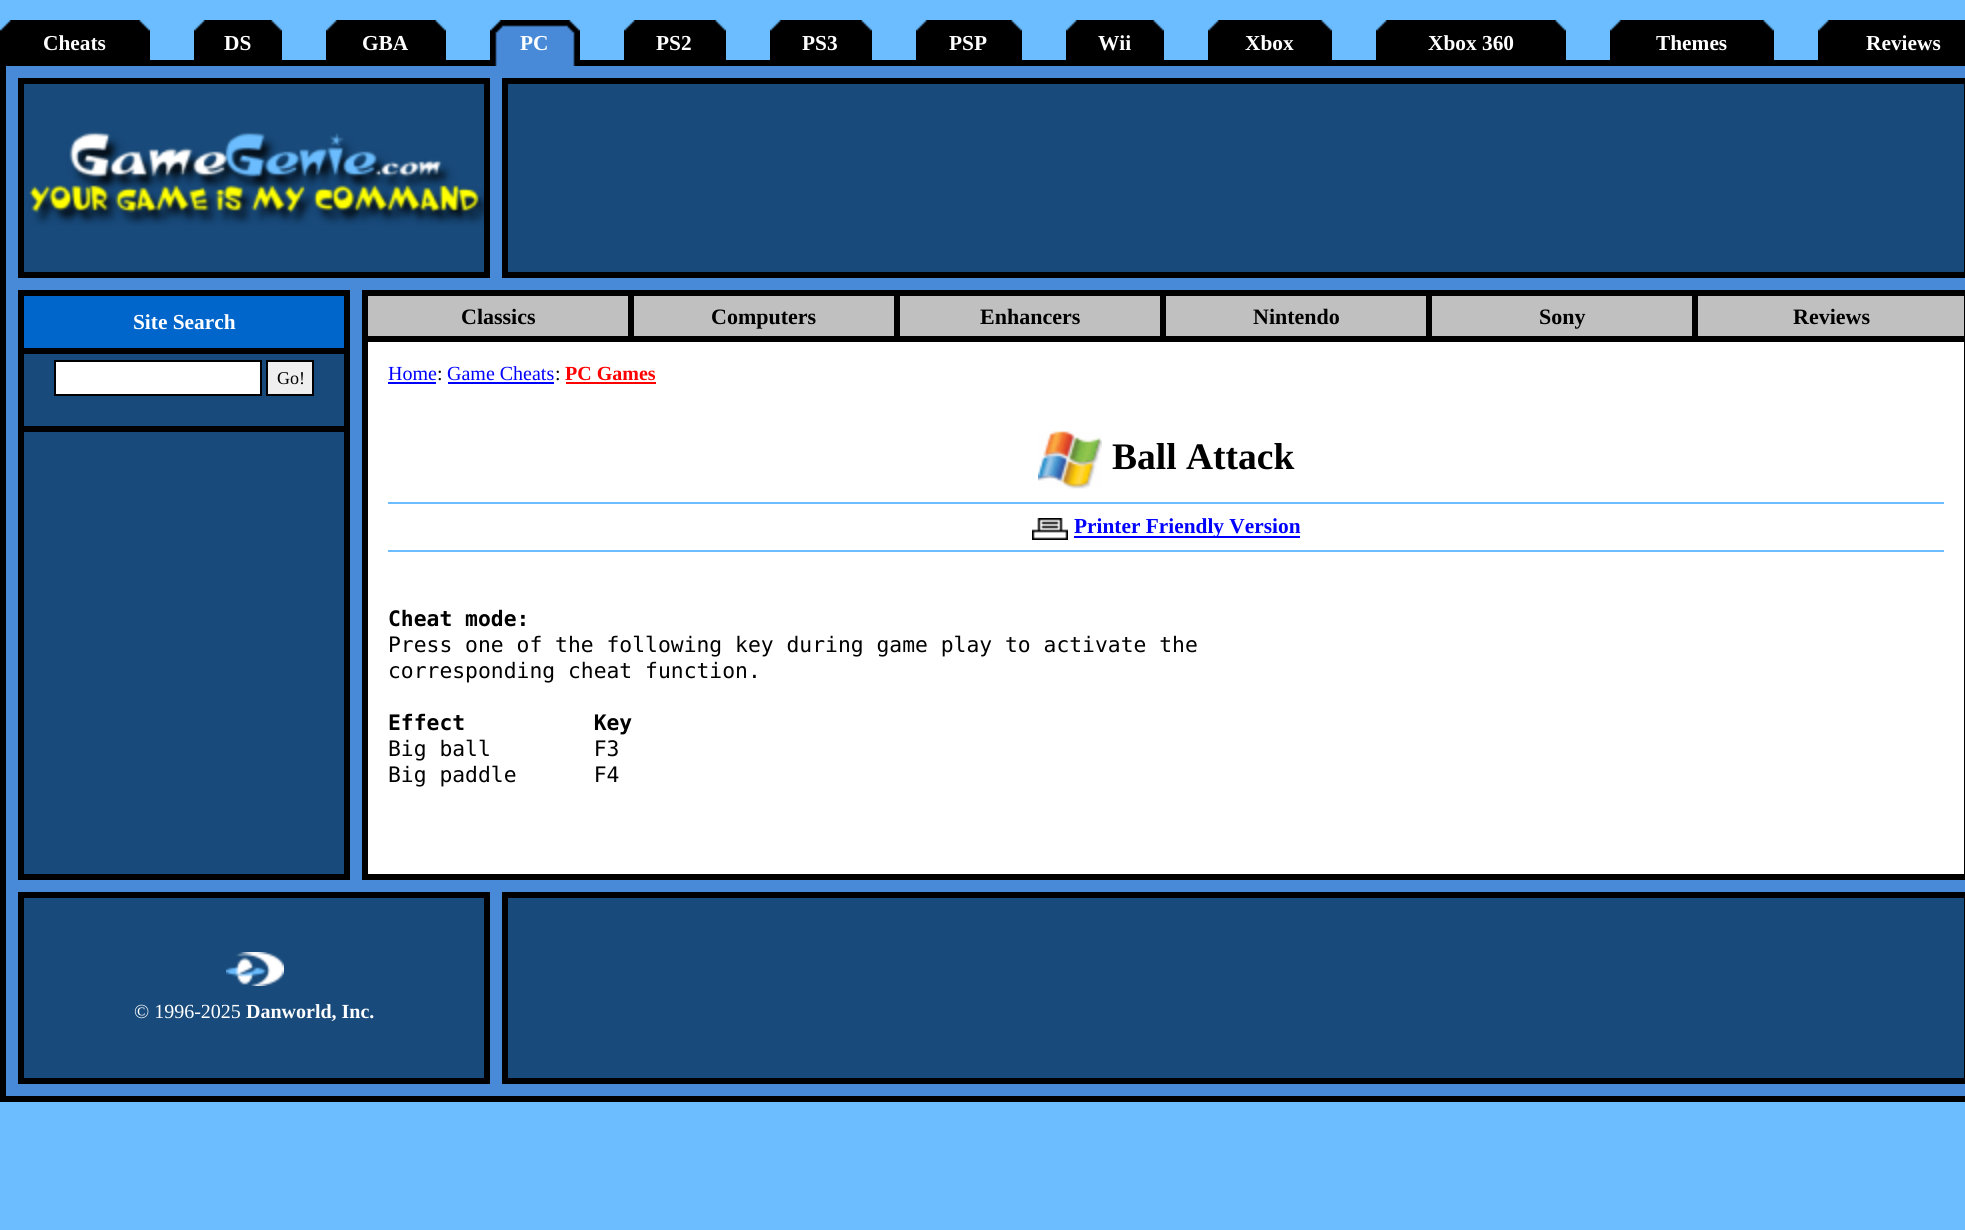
#include <cairo/cairo.h>
#include <math.h>
#include <stddef.h>

typedef struct { double x, y; const char *s; } line_t;
typedef struct { double x, y, w, h; unsigned color; } box_t;
static cairo_t *cr;

static void rgb(unsigned color)
{
	cairo_set_source_rgb(cr, (color >> 16) / 255.0, (color >> 8 & 255) / 255.0, (color & 255) / 255.0);
}

static void image(const char *path, double x, double y, double w, double h)
{
	cairo_surface_t *image = cairo_image_surface_create_from_png(path);
	cairo_save(cr);
	cairo_set_source_surface(cr, image, x, y);
	cairo_rectangle(cr, x, y, w, h);
	cairo_fill(cr);
	cairo_restore(cr);
	cairo_surface_destroy(image);
}

int main(void) {
	cairo_surface_t *surface = cairo_image_surface_create(CAIRO_FORMAT_RGB24, 1965, 1230);
	cr = cairo_create(surface);
	cairo_font_options_t *options = cairo_font_options_create();
	cairo_font_options_set_hint_metrics(options, CAIRO_HINT_METRICS_OFF);
	cairo_font_options_set_hint_style(options, CAIRO_HINT_STYLE_NONE);
	cairo_set_font_options(cr, options);
	cairo_set_miter_limit(cr, 4);
	rgb(0x6bbdff);
	cairo_paint(cr);
	rgb(0x000000);
	cairo_rectangle(cr, 0, 20, 1965, 1082);
	cairo_fill(cr);
	image("img/1.png", 0, 20, 11, 11);
	image("img/2.png", 139, 20, 11, 11);
	rgb(0x6bbdff);
	cairo_rectangle(cr, 150, 20, 44, 40);
	cairo_fill(cr);
	image("img/1.png", 194, 20, 11, 11);
	image("img/2.png", 271, 20, 11, 11);
	cairo_rectangle(cr, 282, 20, 44, 40);
	cairo_fill(cr);
	image("img/1.png", 326, 20, 11, 11);
	image("img/2.png", 435, 20, 11, 11);
	cairo_rectangle(cr, 446, 20, 44, 40);
	cairo_fill(cr);
	rgb(0x498ad8);
	cairo_rectangle(cr, 495, 25, 80, 41);
	cairo_fill(cr);
	image("img/3.png", 490, 20, 20, 46);
	image("img/4.png", 560, 20, 20, 46);
	rgb(0x6bbdff);
	cairo_rectangle(cr, 580, 20, 44, 40);
	cairo_fill(cr);
	image("img/1.png", 624, 20, 11, 11);
	image("img/2.png", 715, 20, 11, 11);
	cairo_rectangle(cr, 726, 20, 44, 40);
	cairo_fill(cr);
	image("img/1.png", 770, 20, 11, 11);
	image("img/2.png", 861, 20, 11, 11);
	cairo_rectangle(cr, 872, 20, 44, 40);
	cairo_fill(cr);
	image("img/1.png", 916, 20, 11, 11);
	image("img/2.png", 1011, 20, 11, 11);
	cairo_rectangle(cr, 1022, 20, 44, 40);
	cairo_fill(cr);
	image("img/1.png", 1066, 20, 11, 11);
	image("img/2.png", 1153, 20, 11, 11);
	cairo_rectangle(cr, 1164, 20, 44, 40);
	cairo_fill(cr);
	image("img/1.png", 1208, 20, 11, 11);
	image("img/2.png", 1321, 20, 11, 11);
	cairo_rectangle(cr, 1332, 20, 44, 40);
	cairo_fill(cr);
	image("img/1.png", 1376, 20, 11, 11);
	image("img/2.png", 1555, 20, 11, 11);
	cairo_rectangle(cr, 1566, 20, 44, 40);
	cairo_fill(cr);
	image("img/1.png", 1610, 20, 11, 11);
	image("img/2.png", 1763, 20, 11, 11);
	cairo_rectangle(cr, 1774, 20, 44, 40);
	cairo_fill(cr);
	image("img/1.png", 1818, 20, 11, 11);
	image("img/5.png", 510, 20, 50, 7);
	{
		static const box_t items[] = {
			{6, 66, 1959, 12, 0x498ad8},
			{6, 78, 12, 200, 0x498ad8},
			{490, 78, 12, 200, 0x498ad8},
			{24, 84, 460, 188, 0x184a7b},
		};
		for (size_t i = 0; i < sizeof items / sizeof *items; i++) {
			rgb(items[i].color);
			cairo_rectangle(cr, items[i].x, items[i].y, items[i].w, items[i].h);
			cairo_fill(cr);
		}
	}
	image("img/6.png", 29, 131, 455, 95);
	{
		static const box_t items[] = {
			{508, 84, 1456, 188, 0x184a7b},
			{6, 278, 1959, 12, 0x498ad8},
			{6, 290, 12, 590, 0x498ad8},
			{350, 290, 12, 590, 0x498ad8},
			{24, 354, 320, 520, 0x184a7b},
			{24, 296, 320, 52, 0x0066cc},
		};
		for (size_t i = 0; i < sizeof items / sizeof *items; i++) {
			rgb(items[i].color);
			cairo_rectangle(cr, items[i].x, items[i].y, items[i].w, items[i].h);
			cairo_fill(cr);
		}
	}
	rgb(0xffffff);
	cairo_rectangle(cr, 55, 361, 206, 34);
	cairo_fill_preserve(cr);
	rgb(0x000000);
	cairo_stroke(cr);
	rgb(0xefefef);
	cairo_rectangle(cr, 267, 361, 46, 34);
	cairo_fill_preserve(cr);
	rgb(0x000000);
	cairo_stroke(cr);
	{
		static const box_t items[] = {
			{24, 426, 320, 6, 0x000000},
			{368, 342, 1596, 532, 0xffffff},
			{368, 296, 260, 40, 0xc0c0c0},
			{634, 296, 260, 40, 0xc0c0c0},
			{900, 296, 260, 40, 0xc0c0c0},
			{1166, 296, 260, 40, 0xc0c0c0},
			{1432, 296, 260, 40, 0xc0c0c0},
			{1698, 296, 266, 40, 0xc0c0c0},
			{388, 382, 48, 2, 0x0000ff},
			{448, 382, 106, 2, 0x0000ff},
			{566, 382, 90, 2, 0xff0000},
		};
		for (size_t i = 0; i < sizeof items / sizeof *items; i++) {
			rgb(items[i].color);
			cairo_rectangle(cr, items[i].x, items[i].y, items[i].w, items[i].h);
			cairo_fill(cr);
		}
	}
	image("img/7.png", 1038, 431, 64, 58);
	rgb(0x6bbdff);
	cairo_rectangle(cr, 388, 502, 1556, 2);
	cairo_fill(cr);
	image("img/8.png", 1032, 518, 36, 22);
	{
		static const box_t items[] = {
			{1074, 536, 226, 2, 0x0000ff},
			{388, 550, 1556, 2, 0x6bbdff},
			{6, 880, 1959, 12, 0x498ad8},
			{6, 892, 12, 192, 0x498ad8},
			{490, 892, 12, 192, 0x498ad8},
			{24, 898, 460, 180, 0x184a7b},
		};
		for (size_t i = 0; i < sizeof items / sizeof *items; i++) {
			rgb(items[i].color);
			cairo_rectangle(cr, items[i].x, items[i].y, items[i].w, items[i].h);
			cairo_fill(cr);
		}
	}
	image("img/9.png", 226, 952, 58, 34);
	cairo_rectangle(cr, 508, 898, 1456, 180);
	cairo_fill(cr);
	rgb(0x498ad8);
	cairo_rectangle(cr, 6, 1084, 1959, 12);
	cairo_fill(cr);
	cairo_select_font_face(cr, "Liberation Serif", CAIRO_FONT_SLANT_NORMAL, CAIRO_FONT_WEIGHT_BOLD);
	cairo_set_font_size(cr, 21.35);
	rgb(0xffffff);
	{
		static const line_t items[] = {
			{43, 50, "Cheats"},
			{224, 50, "DS"},
			{362, 50, "GBA"},
			{520, 50, "PC"},
			{656, 50, "PS2"},
			{802, 50, "PS3"},
			{949, 50, "PSP"},
			{1098, 50, "Wii"},
			{1245, 50, "Xbox"},
			{1428, 50, "Xbox 360"},
			{1656, 50, "Themes"},
			{1866, 50, "Reviews"},
			{133, 329, "Site Search"},
		};
		for (size_t i = 0; i < sizeof items / sizeof *items; i++) {
			cairo_move_to(cr, items[i].x, items[i].y);
			cairo_show_text(cr, items[i].s);
		}
	}
	cairo_select_font_face(cr, "Liberation Serif", CAIRO_FONT_SLANT_NORMAL, CAIRO_FONT_WEIGHT_NORMAL);
	cairo_set_font_size(cr, 18);
	rgb(0x000000);
	cairo_move_to(cr, 277, 384);
	cairo_show_text(cr, "Go!");
	cairo_select_font_face(cr, "Liberation Serif", CAIRO_FONT_SLANT_NORMAL, CAIRO_FONT_WEIGHT_BOLD);
	cairo_set_font_size(cr, 22);
	{
		static const line_t items[] = {
			{461, 324, "Classics"},
			{711, 324, "Computers"},
			{980, 324, "Enhancers"},
			{1253, 324, "Nintendo"},
			{1539, 324, "Sony"},
			{1793, 324, "Reviews"},
		};
		for (size_t i = 0; i < sizeof items / sizeof *items; i++) {
			cairo_move_to(cr, items[i].x, items[i].y);
			cairo_show_text(cr, items[i].s);
		}
	}
	cairo_select_font_face(cr, "Liberation Serif", CAIRO_FONT_SLANT_NORMAL, CAIRO_FONT_WEIGHT_NORMAL);
	cairo_set_font_size(cr, 20);
	rgb(0x0000ff);
	cairo_move_to(cr, 388, 380);
	cairo_show_text(cr, "Home");
	rgb(0x000000);
	cairo_move_to(cr, 437, 380);
	cairo_show_text(cr, ":");
	rgb(0x0000ff);
	cairo_move_to(cr, 447, 380);
	cairo_show_text(cr, "Game Cheats");
	rgb(0x000000);
	cairo_move_to(cr, 555, 380);
	cairo_show_text(cr, ":");
	cairo_select_font_face(cr, "Liberation Serif", CAIRO_FONT_SLANT_NORMAL, CAIRO_FONT_WEIGHT_BOLD);
	rgb(0xff0000);
	cairo_move_to(cr, 565, 380);
	cairo_show_text(cr, "PC Games");
	cairo_set_font_size(cr, 37.5);
	rgb(0x000000);
	cairo_move_to(cr, 1112, 469);
	cairo_show_text(cr, "Ball Attack");
	cairo_set_font_size(cr, 21.35);
	rgb(0x0000ff);
	cairo_move_to(cr, 1074, 533);
	cairo_show_text(cr, "Printer Friendly Version");
	cairo_select_font_face(cr, "DejaVu Sans Mono", CAIRO_FONT_SLANT_NORMAL, CAIRO_FONT_WEIGHT_BOLD);
	rgb(0x000000);
	cairo_move_to(cr, 388, 626);
	cairo_show_text(cr, "Cheat mode:");
	cairo_select_font_face(cr, "DejaVu Sans Mono", CAIRO_FONT_SLANT_NORMAL, CAIRO_FONT_WEIGHT_NORMAL);
	cairo_move_to(cr, 388, 652);
	cairo_show_text(cr, "Press one of the following key during game play to activate the");
	cairo_move_to(cr, 388, 678);
	cairo_show_text(cr, "corresponding cheat function.");
	cairo_select_font_face(cr, "DejaVu Sans Mono", CAIRO_FONT_SLANT_NORMAL, CAIRO_FONT_WEIGHT_BOLD);
	cairo_move_to(cr, 388, 730);
	cairo_show_text(cr, "Effect          Key");
	cairo_select_font_face(cr, "DejaVu Sans Mono", CAIRO_FONT_SLANT_NORMAL, CAIRO_FONT_WEIGHT_NORMAL);
	cairo_move_to(cr, 388, 756);
	cairo_show_text(cr, "Big ball        F3");
	cairo_move_to(cr, 388, 782);
	cairo_show_text(cr, "Big paddle      F4");
	cairo_select_font_face(cr, "Liberation Serif", CAIRO_FONT_SLANT_NORMAL, CAIRO_FONT_WEIGHT_NORMAL);
	cairo_set_font_size(cr, 20);
	rgb(0xffffff);
	cairo_move_to(cr, 134, 1018);
	cairo_show_text(cr, "© 1996-2025");
	cairo_select_font_face(cr, "Liberation Serif", CAIRO_FONT_SLANT_NORMAL, CAIRO_FONT_WEIGHT_BOLD);
	cairo_move_to(cr, 246, 1018);
	cairo_show_text(cr, "Danworld, Inc.");
	cairo_surface_write_to_png(surface, "page.png");
	cairo_font_options_destroy(options);
	cairo_destroy(cr);
	cairo_surface_destroy(surface);
	return 0;
}
